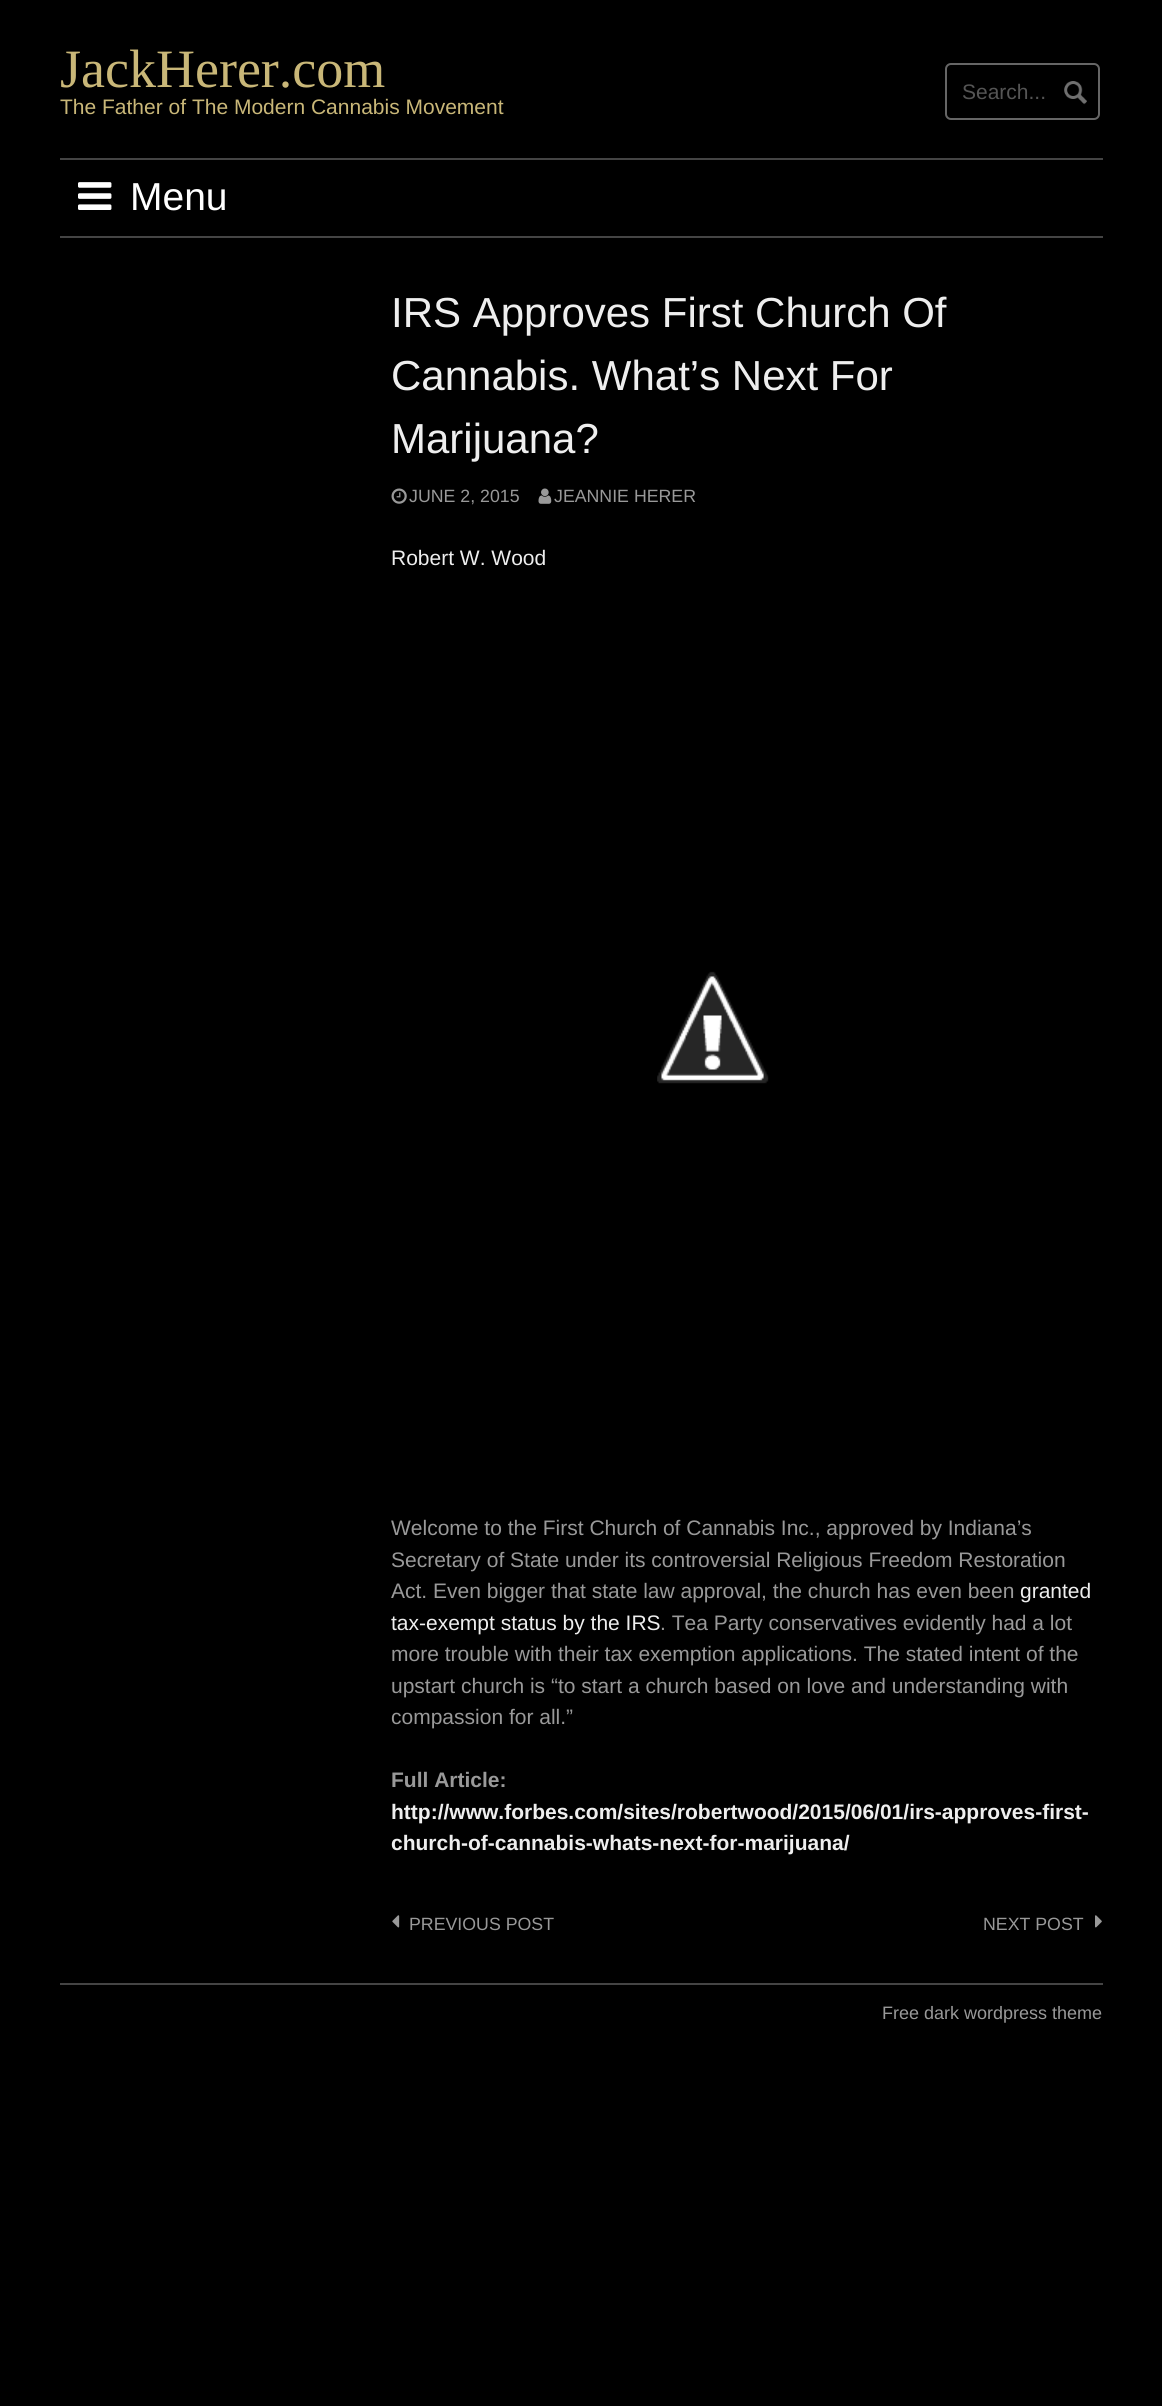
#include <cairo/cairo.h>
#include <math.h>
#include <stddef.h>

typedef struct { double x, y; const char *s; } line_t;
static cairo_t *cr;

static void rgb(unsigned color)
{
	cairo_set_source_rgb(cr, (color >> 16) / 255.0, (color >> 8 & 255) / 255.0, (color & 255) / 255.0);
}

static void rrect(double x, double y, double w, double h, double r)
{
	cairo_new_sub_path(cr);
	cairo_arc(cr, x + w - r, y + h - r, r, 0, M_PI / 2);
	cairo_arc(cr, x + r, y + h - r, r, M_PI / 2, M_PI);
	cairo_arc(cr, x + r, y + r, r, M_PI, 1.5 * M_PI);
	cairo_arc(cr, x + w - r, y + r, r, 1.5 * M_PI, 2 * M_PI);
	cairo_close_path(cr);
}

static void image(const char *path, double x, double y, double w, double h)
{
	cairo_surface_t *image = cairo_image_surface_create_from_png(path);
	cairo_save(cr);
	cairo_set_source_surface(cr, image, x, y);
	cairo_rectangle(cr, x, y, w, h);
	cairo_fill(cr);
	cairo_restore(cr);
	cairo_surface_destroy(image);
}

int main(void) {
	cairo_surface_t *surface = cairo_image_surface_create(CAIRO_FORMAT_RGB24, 1162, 2406);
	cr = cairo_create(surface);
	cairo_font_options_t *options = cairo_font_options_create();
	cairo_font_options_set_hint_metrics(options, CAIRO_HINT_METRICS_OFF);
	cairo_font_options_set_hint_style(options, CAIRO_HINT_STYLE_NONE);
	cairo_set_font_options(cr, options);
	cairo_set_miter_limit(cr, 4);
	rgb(0x000000);
	cairo_paint(cr);
	rrect(946, 64, 153, 55, 5);
	rgb(0x666666);
	cairo_stroke(cr);
	image("img/1.png", 1064, 81, 23, 24);
	rgb(0x444444);
	cairo_rectangle(cr, 60, 158, 1043, 2);
	cairo_fill(cr);
	cairo_rectangle(cr, 60, 236, 1043, 2);
	cairo_fill(cr);
	image("img/2.png", 78, 182, 34, 28);
	image("img/3.png", 391, 488, 16, 16);
	image("img/4.png", 538, 488, 14, 16);
	image("img/5.png", 657, 971, 112, 113);
	image("img/6.png", 392, 1915, 8, 13);
	image("img/7.png", 1095, 1915, 7, 13);
	cairo_rectangle(cr, 60, 1983, 1043, 2);
	cairo_fill(cr);
	cairo_select_font_face(cr, "Liberation Serif", CAIRO_FONT_SLANT_NORMAL, CAIRO_FONT_WEIGHT_NORMAL);
	cairo_set_font_size(cr, 54);
	rgb(0xc9b778);
	cairo_move_to(cr, 60, 87);
	cairo_show_text(cr, "JackHerer.com");
	cairo_select_font_face(cr, "Liberation Sans", CAIRO_FONT_SLANT_NORMAL, CAIRO_FONT_WEIGHT_NORMAL);
	cairo_set_font_size(cr, 21);
	cairo_move_to(cr, 60, 114);
	cairo_show_text(cr, "The Father of The Modern Cannabis Movement");
	rgb(0x555555);
	cairo_move_to(cr, 962, 99);
	cairo_show_text(cr, "Search...");
	cairo_set_font_size(cr, 39);
	rgb(0xffffff);
	cairo_move_to(cr, 130, 210);
	cairo_show_text(cr, "Menu");
	cairo_set_font_size(cr, 42);
	rgb(0xeeeeee);
	{
		static const line_t items[] = {
			{391, 327, "IRS Approves First Church Of"},
			{391, 390, "Cannabis. What’s Next For"},
			{391, 453, "Marijuana?"},
		};
		for (size_t i = 0; i < sizeof items / sizeof *items; i++) {
			cairo_move_to(cr, items[i].x, items[i].y);
			cairo_show_text(cr, items[i].s);
		}
	}
	cairo_set_font_size(cr, 17.75);
	rgb(0x999999);
	cairo_move_to(cr, 409, 502);
	cairo_show_text(cr, "JUNE 2, 2015");
	cairo_move_to(cr, 554, 502);
	cairo_show_text(cr, "JEANNIE HERER");
	cairo_set_font_size(cr, 21);
	rgb(0xeeeeee);
	cairo_move_to(cr, 391, 565);
	cairo_show_text(cr, "Robert W. Wood");
	rgb(0x999999);
	{
		static const line_t items[] = {
			{391, 1535, "Welcome to the First Church of Cannabis Inc., approved by Indiana’s"},
			{391, 1567, "Secretary of State under its controversial Religious Freedom Restoration"},
			{391, 1598, "Act. Even bigger that state law approval, the church has even been"},
		};
		for (size_t i = 0; i < sizeof items / sizeof *items; i++) {
			cairo_move_to(cr, items[i].x, items[i].y);
			cairo_show_text(cr, items[i].s);
		}
	}
	rgb(0xeeeeee);
	cairo_move_to(cr, 1020, 1598);
	cairo_show_text(cr, "granted");
	cairo_move_to(cr, 391, 1630);
	cairo_show_text(cr, "tax-exempt status by the IRS");
	rgb(0x999999);
	{
		static const line_t items[] = {
			{660, 1630, ". Tea Party conservatives evidently had a lot"},
			{391, 1661, "more trouble with their tax exemption applications. The stated intent of the"},
			{391, 1693, "upstart church is “to start a church based on love and understanding with"},
			{391, 1724, "compassion for all.”"},
		};
		for (size_t i = 0; i < sizeof items / sizeof *items; i++) {
			cairo_move_to(cr, items[i].x, items[i].y);
			cairo_show_text(cr, items[i].s);
		}
	}
	cairo_select_font_face(cr, "Liberation Sans", CAIRO_FONT_SLANT_NORMAL, CAIRO_FONT_WEIGHT_BOLD);
	cairo_move_to(cr, 391, 1787);
	cairo_show_text(cr, "Full Article:");
	rgb(0xeeeeee);
	cairo_move_to(cr, 391, 1819);
	cairo_show_text(cr, "http://www.forbes.com/sites/robertwood/2015/06/01/irs-approves-first-");
	cairo_move_to(cr, 391, 1850);
	cairo_show_text(cr, "church-of-cannabis-whats-next-for-marijuana/");
	cairo_select_font_face(cr, "Liberation Sans", CAIRO_FONT_SLANT_NORMAL, CAIRO_FONT_WEIGHT_NORMAL);
	cairo_set_font_size(cr, 17.75);
	rgb(0x999999);
	cairo_move_to(cr, 409, 1930);
	cairo_show_text(cr, "PREVIOUS POST");
	cairo_move_to(cr, 983, 1930);
	cairo_show_text(cr, "NEXT POST");
	cairo_set_font_size(cr, 18);
	cairo_move_to(cr, 882, 2019);
	cairo_show_text(cr, "Free dark wordpress theme");
	cairo_surface_write_to_png(surface, "page.png");
	cairo_font_options_destroy(options);
	cairo_destroy(cr);
	cairo_surface_destroy(surface);
	return 0;
}
